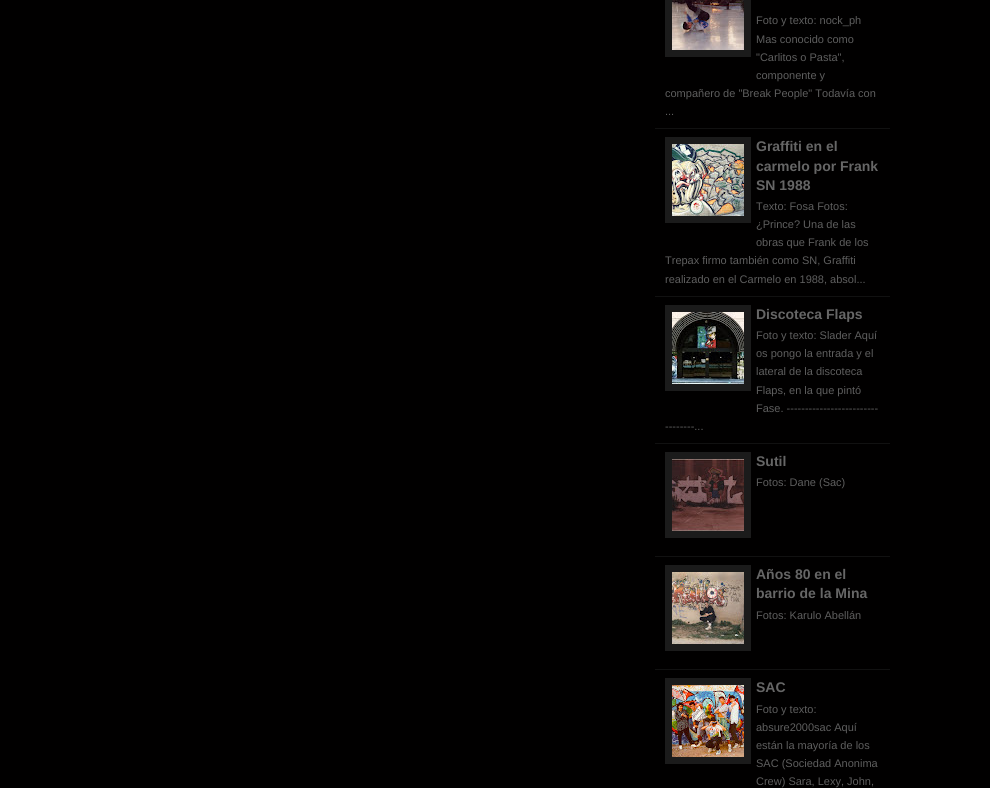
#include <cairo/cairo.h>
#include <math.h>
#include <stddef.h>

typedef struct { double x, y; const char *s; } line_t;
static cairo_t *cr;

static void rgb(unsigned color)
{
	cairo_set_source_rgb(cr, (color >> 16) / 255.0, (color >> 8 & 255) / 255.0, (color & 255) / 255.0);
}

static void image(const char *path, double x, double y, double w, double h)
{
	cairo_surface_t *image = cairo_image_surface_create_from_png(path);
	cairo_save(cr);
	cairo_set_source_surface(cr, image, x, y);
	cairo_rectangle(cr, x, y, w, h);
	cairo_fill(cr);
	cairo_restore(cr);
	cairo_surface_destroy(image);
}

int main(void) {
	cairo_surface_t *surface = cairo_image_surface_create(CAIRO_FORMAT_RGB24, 990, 788);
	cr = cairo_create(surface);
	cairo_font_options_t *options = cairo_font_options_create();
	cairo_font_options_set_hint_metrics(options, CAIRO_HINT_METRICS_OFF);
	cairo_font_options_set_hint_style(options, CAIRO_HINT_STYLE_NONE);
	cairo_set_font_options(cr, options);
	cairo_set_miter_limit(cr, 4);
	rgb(0x010000);
	cairo_paint(cr);
	rgb(0x111111);
	cairo_rectangle(cr, 655, 128, 235, 1);
	cairo_fill(cr);
	rgb(0x1b1b1b);
	cairo_rectangle(cr, 665, 0, 86, 57);
	cairo_fill(cr);
	image("img/1.png", 672, 0, 72, 50);
	rgb(0x111111);
	cairo_rectangle(cr, 655, 296, 235, 1);
	cairo_fill(cr);
	rgb(0x1b1b1b);
	cairo_rectangle(cr, 665, 137, 86, 86);
	cairo_fill(cr);
	image("img/2.png", 672, 144, 72, 72);
	rgb(0x111111);
	cairo_rectangle(cr, 655, 443, 235, 1);
	cairo_fill(cr);
	rgb(0x1b1b1b);
	cairo_rectangle(cr, 665, 305, 86, 86);
	cairo_fill(cr);
	image("img/3.png", 672, 312, 72, 72);
	rgb(0x111111);
	cairo_rectangle(cr, 655, 556, 235, 1);
	cairo_fill(cr);
	rgb(0x1b1b1b);
	cairo_rectangle(cr, 665, 452, 86, 86);
	cairo_fill(cr);
	image("img/4.png", 672, 459, 72, 72);
	rgb(0x111111);
	cairo_rectangle(cr, 655, 669, 235, 1);
	cairo_fill(cr);
	rgb(0x1b1b1b);
	cairo_rectangle(cr, 665, 565, 86, 86);
	cairo_fill(cr);
	image("img/5.png", 672, 572, 72, 72);
	cairo_rectangle(cr, 665, 678, 86, 86);
	cairo_fill(cr);
	image("img/6.png", 672, 685, 72, 72);
	cairo_select_font_face(cr, "Liberation Sans", CAIRO_FONT_SLANT_NORMAL, CAIRO_FONT_WEIGHT_NORMAL);
	cairo_set_font_size(cr, 11);
	rgb(0x5e5e5e);
	{
		static const line_t items[] = {
			{756, 24, "Foto y texto: nock_ph"},
			{756, 43, "Mas conocido como"},
			{756, 61, "\"Carlitos o Pasta\","},
			{756, 79, "componente y"},
			{665, 97, "compañero de \"Break People\" Todavía con"},
			{665, 115, "..."},
		};
		for (size_t i = 0; i < sizeof items / sizeof *items; i++) {
			cairo_move_to(cr, items[i].x, items[i].y);
			cairo_show_text(cr, items[i].s);
		}
	}
	cairo_select_font_face(cr, "Liberation Sans", CAIRO_FONT_SLANT_NORMAL, CAIRO_FONT_WEIGHT_BOLD);
	cairo_set_font_size(cr, 14);
	rgb(0x666666);
	{
		static const line_t items[] = {
			{756, 151, "Graffiti en el"},
			{756, 171, "carmelo por Frank"},
			{756, 190, "SN 1988"},
		};
		for (size_t i = 0; i < sizeof items / sizeof *items; i++) {
			cairo_move_to(cr, items[i].x, items[i].y);
			cairo_show_text(cr, items[i].s);
		}
	}
	cairo_select_font_face(cr, "Liberation Sans", CAIRO_FONT_SLANT_NORMAL, CAIRO_FONT_WEIGHT_NORMAL);
	cairo_set_font_size(cr, 11);
	rgb(0x5e5e5e);
	{
		static const line_t items[] = {
			{756, 210, "Texto: Fosa Fotos:"},
			{756, 228, "¿Prince? Una de las"},
			{756, 246, "obras que Frank de los"},
			{665, 264, "Trepax firmo también como SN, Graffiti"},
			{665, 283, "realizado en el Carmelo en 1988, absol..."},
		};
		for (size_t i = 0; i < sizeof items / sizeof *items; i++) {
			cairo_move_to(cr, items[i].x, items[i].y);
			cairo_show_text(cr, items[i].s);
		}
	}
	cairo_select_font_face(cr, "Liberation Sans", CAIRO_FONT_SLANT_NORMAL, CAIRO_FONT_WEIGHT_BOLD);
	cairo_set_font_size(cr, 14);
	rgb(0x666666);
	cairo_move_to(cr, 756, 319);
	cairo_show_text(cr, "Discoteca Flaps");
	cairo_select_font_face(cr, "Liberation Sans", CAIRO_FONT_SLANT_NORMAL, CAIRO_FONT_WEIGHT_NORMAL);
	cairo_set_font_size(cr, 11);
	rgb(0x5e5e5e);
	{
		static const line_t items[] = {
			{756, 339, "Foto y texto: Slader Aquí"},
			{756, 357, "os pongo la entrada y el"},
			{756, 375, "lateral de la discoteca"},
			{756, 394, "Flaps, en la que pintó"},
			{756, 412, "Fase. -------------------------"},
			{665, 430, "--------..."},
		};
		for (size_t i = 0; i < sizeof items / sizeof *items; i++) {
			cairo_move_to(cr, items[i].x, items[i].y);
			cairo_show_text(cr, items[i].s);
		}
	}
	cairo_select_font_face(cr, "Liberation Sans", CAIRO_FONT_SLANT_NORMAL, CAIRO_FONT_WEIGHT_BOLD);
	cairo_set_font_size(cr, 14);
	rgb(0x666666);
	cairo_move_to(cr, 756, 466);
	cairo_show_text(cr, "Sutil");
	cairo_select_font_face(cr, "Liberation Sans", CAIRO_FONT_SLANT_NORMAL, CAIRO_FONT_WEIGHT_NORMAL);
	cairo_set_font_size(cr, 11);
	rgb(0x5e5e5e);
	cairo_move_to(cr, 756, 486);
	cairo_show_text(cr, "Fotos: Dane (Sac)");
	cairo_select_font_face(cr, "Liberation Sans", CAIRO_FONT_SLANT_NORMAL, CAIRO_FONT_WEIGHT_BOLD);
	cairo_set_font_size(cr, 14);
	rgb(0x666666);
	cairo_move_to(cr, 756, 579);
	cairo_show_text(cr, "Años 80 en el");
	cairo_move_to(cr, 756, 598);
	cairo_show_text(cr, "barrio de la Mina");
	cairo_select_font_face(cr, "Liberation Sans", CAIRO_FONT_SLANT_NORMAL, CAIRO_FONT_WEIGHT_NORMAL);
	cairo_set_font_size(cr, 11);
	rgb(0x5e5e5e);
	cairo_move_to(cr, 756, 619);
	cairo_show_text(cr, "Fotos: Karulo Abellán");
	cairo_select_font_face(cr, "Liberation Sans", CAIRO_FONT_SLANT_NORMAL, CAIRO_FONT_WEIGHT_BOLD);
	cairo_set_font_size(cr, 14);
	rgb(0x666666);
	cairo_move_to(cr, 756, 692);
	cairo_show_text(cr, "SAC");
	cairo_select_font_face(cr, "Liberation Sans", CAIRO_FONT_SLANT_NORMAL, CAIRO_FONT_WEIGHT_NORMAL);
	cairo_set_font_size(cr, 11);
	rgb(0x5e5e5e);
	{
		static const line_t items[] = {
			{756, 713, "Foto y texto:"},
			{756, 731, "absure2000sac Aquí"},
			{756, 749, "están la mayoría de los"},
			{756, 767, "SAC (Sociedad Anonima"},
			{756, 785, "Crew) Sara, Lexy, John,"},
		};
		for (size_t i = 0; i < sizeof items / sizeof *items; i++) {
			cairo_move_to(cr, items[i].x, items[i].y);
			cairo_show_text(cr, items[i].s);
		}
	}
	cairo_surface_write_to_png(surface, "page.png");
	cairo_font_options_destroy(options);
	cairo_destroy(cr);
	cairo_surface_destroy(surface);
	return 0;
}
